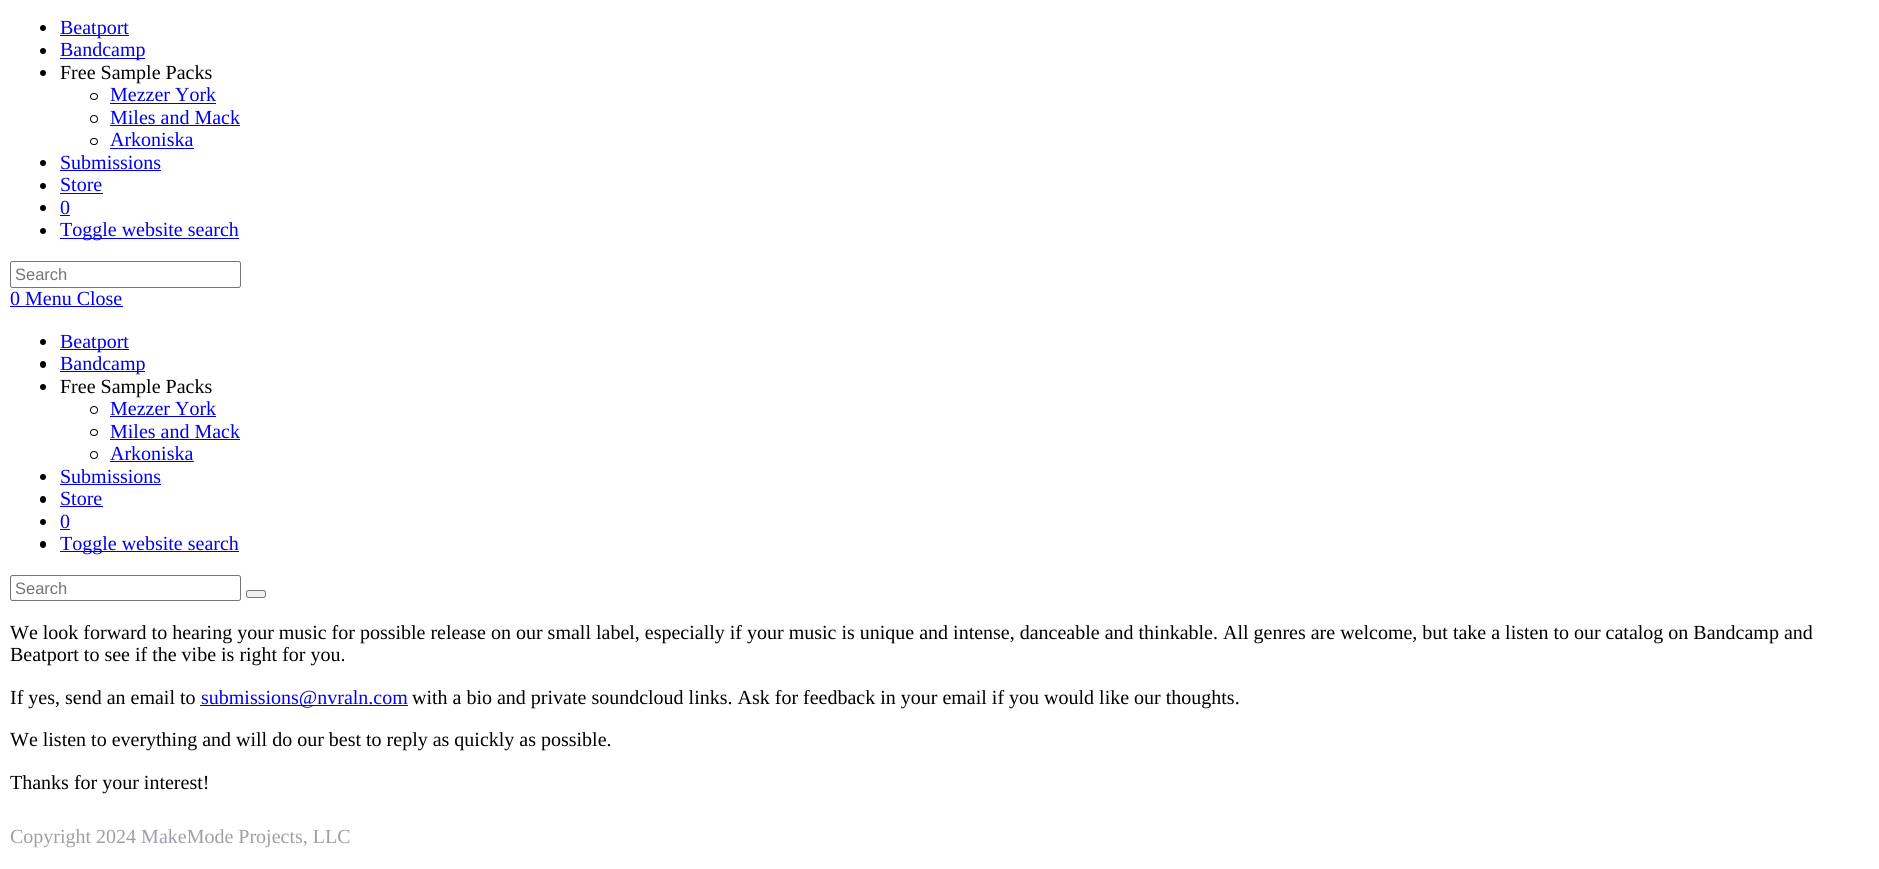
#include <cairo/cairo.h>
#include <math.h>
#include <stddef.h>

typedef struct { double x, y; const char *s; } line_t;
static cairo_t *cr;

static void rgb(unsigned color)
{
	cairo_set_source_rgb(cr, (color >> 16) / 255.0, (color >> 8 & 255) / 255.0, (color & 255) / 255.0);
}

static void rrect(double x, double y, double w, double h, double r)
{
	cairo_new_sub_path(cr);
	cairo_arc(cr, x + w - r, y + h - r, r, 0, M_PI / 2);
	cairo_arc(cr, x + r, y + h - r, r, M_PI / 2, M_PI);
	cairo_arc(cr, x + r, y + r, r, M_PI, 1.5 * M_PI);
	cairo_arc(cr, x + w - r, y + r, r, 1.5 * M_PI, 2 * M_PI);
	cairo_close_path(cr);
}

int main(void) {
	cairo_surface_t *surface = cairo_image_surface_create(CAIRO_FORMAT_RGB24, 1879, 869);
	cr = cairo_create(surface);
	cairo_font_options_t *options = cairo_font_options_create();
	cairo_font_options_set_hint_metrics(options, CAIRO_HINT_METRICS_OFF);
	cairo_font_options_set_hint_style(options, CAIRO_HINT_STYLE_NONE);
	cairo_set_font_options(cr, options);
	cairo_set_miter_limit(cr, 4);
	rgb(0xffffff);
	cairo_paint(cr);
	rgb(0x000000);
	cairo_arc(cr, 43, 28, 3, 0, 2 * M_PI);
	cairo_fill(cr);
	rgb(0x0000ee);
	cairo_rectangle(cr, 60, 35, 69, 1);
	cairo_fill(cr);
	rgb(0x000000);
	cairo_arc(cr, 43, 51, 3, 0, 2 * M_PI);
	cairo_fill(cr);
	rgb(0x0000ee);
	cairo_rectangle(cr, 60, 58, 85, 1);
	cairo_fill(cr);
	rgb(0x000000);
	cairo_arc(cr, 43, 73, 3, 0, 2 * M_PI);
	cairo_fill(cr);
	rrect(90.5, 93.5, 7, 6, 3);
	cairo_set_line_width(cr, 1);
	cairo_stroke(cr);
	rgb(0x0000ee);
	cairo_rectangle(cr, 110, 103, 106, 1);
	cairo_fill(cr);
	cairo_arc(cr, 94, 119, 3.5, 0, 2 * M_PI);
	rgb(0x000000);
	cairo_stroke(cr);
	rgb(0x0000ee);
	cairo_rectangle(cr, 110, 125, 130, 1);
	cairo_fill(cr);
	rrect(90.5, 138.5, 7, 6, 3);
	rgb(0x000000);
	cairo_stroke(cr);
	rgb(0x0000ee);
	cairo_rectangle(cr, 110, 148, 84, 1);
	cairo_fill(cr);
	rgb(0x000000);
	cairo_arc(cr, 43, 163, 3, 0, 2 * M_PI);
	cairo_fill(cr);
	rgb(0x0000ee);
	cairo_rectangle(cr, 60, 170, 101, 1);
	cairo_fill(cr);
	rgb(0x000000);
	cairo_arc(cr, 43, 186, 3, 0, 2 * M_PI);
	cairo_fill(cr);
	rgb(0x0000ee);
	cairo_rectangle(cr, 60, 193, 43, 1);
	cairo_fill(cr);
	rgb(0x000000);
	cairo_arc(cr, 43, 208, 3, 0, 2 * M_PI);
	cairo_fill(cr);
	rgb(0x0000ee);
	cairo_rectangle(cr, 60, 215, 10, 1);
	cairo_fill(cr);
	rgb(0x000000);
	cairo_arc(cr, 43, 231, 3, 0, 2 * M_PI);
	cairo_fill(cr);
	rgb(0x0000ee);
	cairo_rectangle(cr, 60, 238, 179, 1);
	cairo_fill(cr);
	rrect(10.5, 261.5, 230, 26, 2);
	rgb(0x767676);
	cairo_stroke(cr);
	rgb(0x0000ee);
	cairo_rectangle(cr, 10, 306, 113, 1);
	cairo_fill(cr);
	rgb(0x000000);
	cairo_arc(cr, 43, 342, 3, 0, 2 * M_PI);
	cairo_fill(cr);
	rgb(0x0000ee);
	cairo_rectangle(cr, 60, 349, 69, 1);
	cairo_fill(cr);
	rgb(0x000000);
	rrect(40, 361, 6, 7, 3);
	cairo_fill(cr);
	rgb(0x0000ee);
	cairo_rectangle(cr, 60, 371, 85, 1);
	cairo_fill(cr);
	rgb(0x000000);
	cairo_arc(cr, 43, 387, 3, 0, 2 * M_PI);
	cairo_fill(cr);
	cairo_arc(cr, 94, 410, 3.5, 0, 2 * M_PI);
	cairo_stroke(cr);
	rgb(0x0000ee);
	cairo_rectangle(cr, 110, 416, 106, 1);
	cairo_fill(cr);
	rrect(90.5, 429.5, 7, 6, 3);
	rgb(0x000000);
	cairo_stroke(cr);
	rgb(0x0000ee);
	cairo_rectangle(cr, 110, 439, 130, 1);
	cairo_fill(cr);
	cairo_arc(cr, 94, 455, 3.5, 0, 2 * M_PI);
	rgb(0x000000);
	cairo_stroke(cr);
	rgb(0x0000ee);
	cairo_rectangle(cr, 110, 461, 84, 1);
	cairo_fill(cr);
	rgb(0x000000);
	cairo_arc(cr, 43, 477, 3, 0, 2 * M_PI);
	cairo_fill(cr);
	rgb(0x0000ee);
	cairo_rectangle(cr, 60, 484, 101, 1);
	cairo_fill(cr);
	rgb(0x000000);
	rrect(40, 496, 6, 7, 3);
	cairo_fill(cr);
	rgb(0x0000ee);
	cairo_rectangle(cr, 60, 506, 43, 1);
	cairo_fill(cr);
	rgb(0x000000);
	cairo_arc(cr, 43, 522, 3, 0, 2 * M_PI);
	cairo_fill(cr);
	rgb(0x0000ee);
	cairo_rectangle(cr, 60, 529, 10, 1);
	cairo_fill(cr);
	rgb(0x000000);
	rrect(40, 541, 6, 7, 3);
	cairo_fill(cr);
	rgb(0x0000ee);
	cairo_rectangle(cr, 60, 551, 179, 1);
	cairo_fill(cr);
	rrect(10.5, 575.5, 230, 25, 2);
	rgb(0x767676);
	cairo_stroke(cr);
	rgb(0xefefef);
	rrect(246.5, 590.5, 19, 7, 2);
	cairo_fill_preserve(cr);
	rgb(0x767676);
	cairo_stroke(cr);
	rgb(0x0000ee);
	cairo_rectangle(cr, 200, 705, 208, 1);
	cairo_fill(cr);
	cairo_select_font_face(cr, "Liberation Serif", CAIRO_FONT_SLANT_NORMAL, CAIRO_FONT_WEIGHT_NORMAL);
	cairo_set_font_size(cr, 20);
	cairo_move_to(cr, 60, 34);
	cairo_show_text(cr, "Beatport");
	cairo_move_to(cr, 60, 56);
	cairo_show_text(cr, "Bandcamp");
	rgb(0x000000);
	cairo_move_to(cr, 60, 79);
	cairo_show_text(cr, "Free Sample Packs");
	rgb(0x0000ee);
	{
		static const line_t items[] = {
			{110, 101, "Mezzer York"},
			{110, 124, "Miles and Mack"},
			{110, 146, "Arkoniska"},
			{60, 169, "Submissions"},
			{60, 191, "Store"},
			{60, 214, "0"},
			{60, 236, "Toggle website search"},
		};
		for (size_t i = 0; i < sizeof items / sizeof *items; i++) {
			cairo_move_to(cr, items[i].x, items[i].y);
			cairo_show_text(cr, items[i].s);
		}
	}
	cairo_select_font_face(cr, "Liberation Sans", CAIRO_FONT_SLANT_NORMAL, CAIRO_FONT_WEIGHT_NORMAL);
	cairo_set_font_size(cr, 16.5);
	rgb(0x757575);
	cairo_move_to(cr, 15, 280);
	cairo_show_text(cr, "Search");
	cairo_select_font_face(cr, "Liberation Serif", CAIRO_FONT_SLANT_NORMAL, CAIRO_FONT_WEIGHT_NORMAL);
	cairo_set_font_size(cr, 20);
	rgb(0x0000ee);
	{
		static const line_t items[] = {
			{10, 305, "0 Menu Close"},
			{60, 348, "Beatport"},
			{60, 370, "Bandcamp"},
		};
		for (size_t i = 0; i < sizeof items / sizeof *items; i++) {
			cairo_move_to(cr, items[i].x, items[i].y);
			cairo_show_text(cr, items[i].s);
		}
	}
	rgb(0x000000);
	cairo_move_to(cr, 60, 393);
	cairo_show_text(cr, "Free Sample Packs");
	rgb(0x0000ee);
	{
		static const line_t items[] = {
			{110, 415, "Mezzer York"},
			{110, 438, "Miles and Mack"},
			{110, 460, "Arkoniska"},
			{60, 483, "Submissions"},
			{60, 505, "Store"},
			{60, 528, "0"},
			{60, 550, "Toggle website search"},
		};
		for (size_t i = 0; i < sizeof items / sizeof *items; i++) {
			cairo_move_to(cr, items[i].x, items[i].y);
			cairo_show_text(cr, items[i].s);
		}
	}
	cairo_select_font_face(cr, "Liberation Sans", CAIRO_FONT_SLANT_NORMAL, CAIRO_FONT_WEIGHT_NORMAL);
	cairo_set_font_size(cr, 16.5);
	rgb(0x757575);
	cairo_move_to(cr, 15, 594);
	cairo_show_text(cr, "Search");
	cairo_select_font_face(cr, "Liberation Serif", CAIRO_FONT_SLANT_NORMAL, CAIRO_FONT_WEIGHT_NORMAL);
	cairo_set_font_size(cr, 20);
	rgb(0x000000);
	{
		static const line_t items[] = {
			{10, 639, "We look forward to hearing your music for possible release on our small label, especially if your music is unique and intense, danceable and thinkable. All genres are welcome, but take a listen to our catalog on Bandcamp and"},
			{10, 661, "Beatport to see if the vibe is right for you."},
			{10, 704, "If yes, send an email to"},
		};
		for (size_t i = 0; i < sizeof items / sizeof *items; i++) {
			cairo_move_to(cr, items[i].x, items[i].y);
			cairo_show_text(cr, items[i].s);
		}
	}
	rgb(0x0000ee);
	cairo_move_to(cr, 201, 704);
	cairo_show_text(cr, "submissions@nvraln.com");
	rgb(0x000000);
	{
		static const line_t items[] = {
			{412, 704, "with a bio and private soundcloud links. Ask for feedback in your email if you would like our thoughts."},
			{10, 746, "We listen to everything and will do our best to reply as quickly as possible."},
			{10, 789, "Thanks for your interest!"},
		};
		for (size_t i = 0; i < sizeof items / sizeof *items; i++) {
			cairo_move_to(cr, items[i].x, items[i].y);
			cairo_show_text(cr, items[i].s);
		}
	}
	rgb(0xa39dab);
	cairo_move_to(cr, 10, 843);
	cairo_show_text(cr, "Copyright 2024 MakeMode Projects, LLC");
	cairo_surface_write_to_png(surface, "page.png");
	cairo_font_options_destroy(options);
	cairo_destroy(cr);
	cairo_surface_destroy(surface);
	return 0;
}
